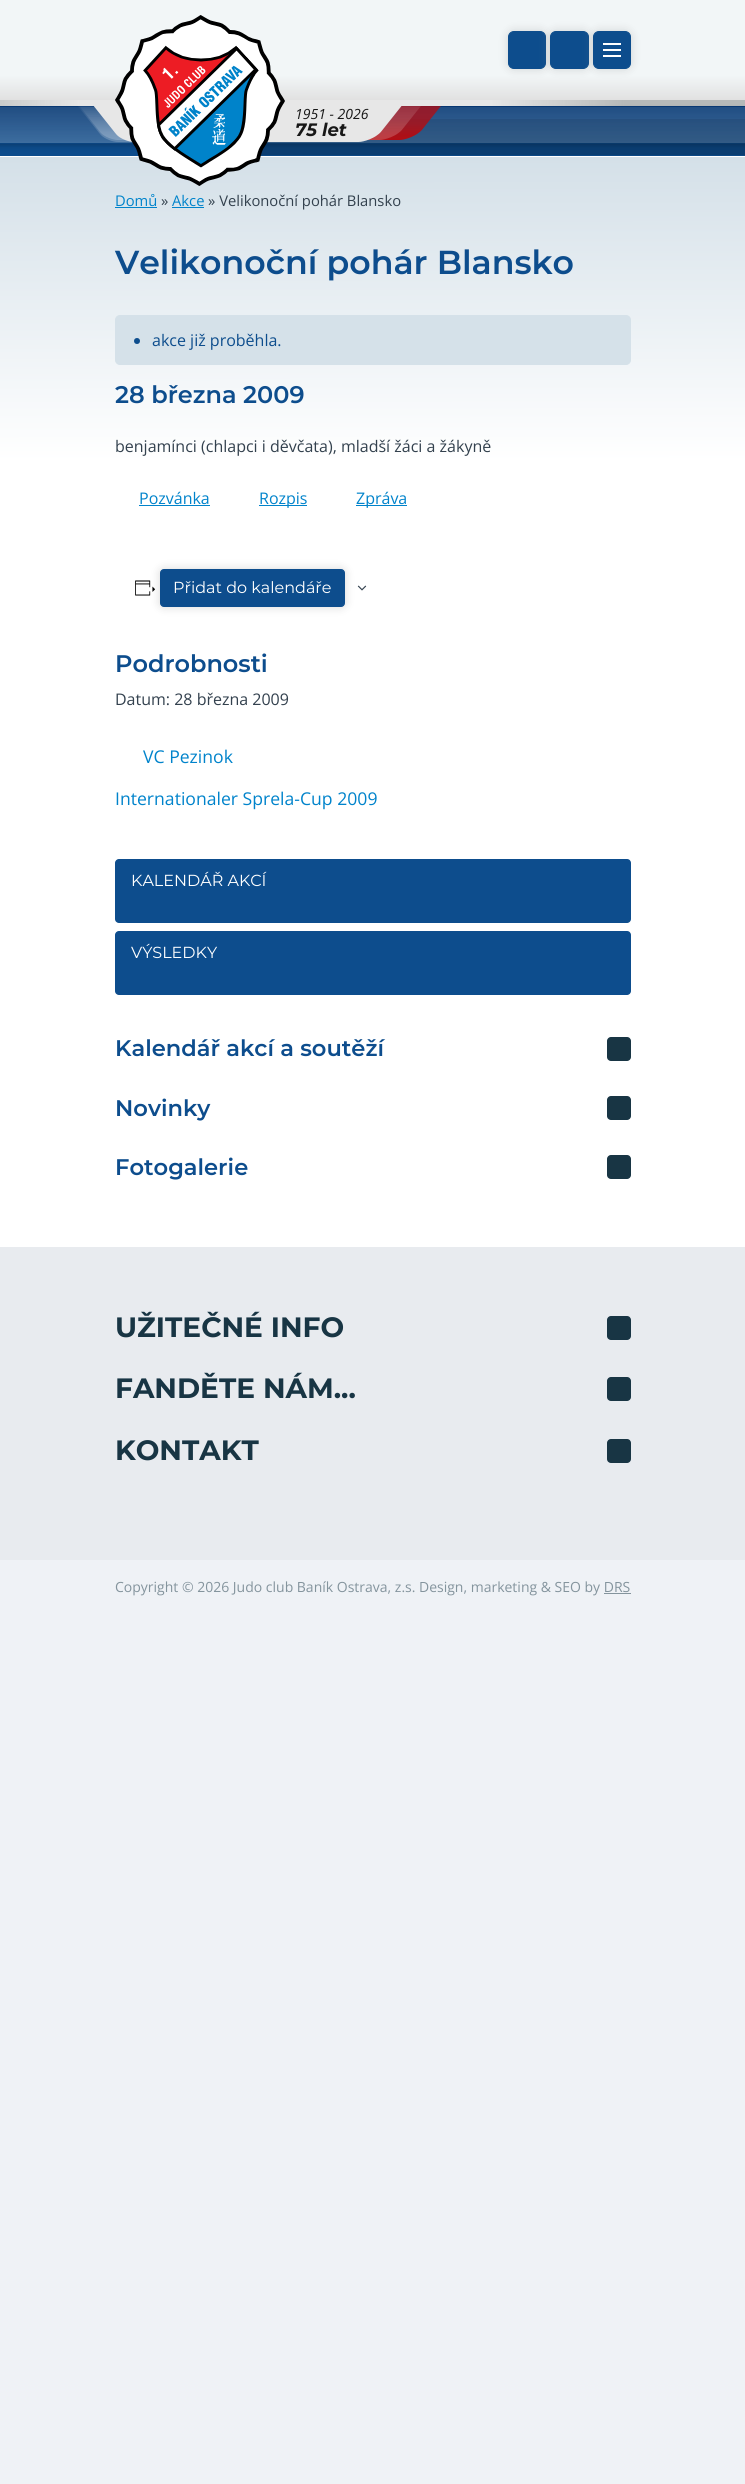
#include <cairo/cairo.h>
#include <math.h>
#include <stddef.h>

typedef struct { double x, y; const char *s; } line_t;
typedef struct { double x, y, w, h; unsigned color; } box_t;
static cairo_t *cr;

static void rgb(unsigned color)
{
	cairo_set_source_rgb(cr, (color >> 16) / 255.0, (color >> 8 & 255) / 255.0, (color & 255) / 255.0);
}

static void rrect(double x, double y, double w, double h, double r)
{
	cairo_new_sub_path(cr);
	cairo_arc(cr, x + w - r, y + h - r, r, 0, M_PI / 2);
	cairo_arc(cr, x + r, y + h - r, r, M_PI / 2, M_PI);
	cairo_arc(cr, x + r, y + r, r, M_PI, 1.5 * M_PI);
	cairo_arc(cr, x + w - r, y + r, r, 1.5 * M_PI, 2 * M_PI);
	cairo_close_path(cr);
}

static void soft_shadow(double x, double y, double w, double h, double r, double blur, double alpha)
{
	cairo_push_group_with_content(cr, CAIRO_CONTENT_ALPHA);
	cairo_set_operator(cr, CAIRO_OPERATOR_SOURCE);
	for (int i = 15; i >= -15 && fmin(w, h) + blur * i / 3 > 0; i -= 2) {
		double e = blur * i / 6;
		cairo_set_source_rgba(cr, 0, 0, 0, alpha * erfc((i - 1) / 8.5) / 2);
		rrect(x - e, y - e, w + 2 * e, h + 2 * e, fmax(0, fmin(r + e + blur * .6, fmin(w, h) / 2 + e)));
		cairo_fill(cr);
	}
	cairo_pattern_t *soft = cairo_pop_group(cr);
	cairo_mask(cr, soft);
	cairo_pattern_destroy(soft);
}

static void image(const char *path, double x, double y, double w, double h)
{
	cairo_surface_t *image = cairo_image_surface_create_from_png(path);
	cairo_save(cr);
	cairo_set_source_surface(cr, image, x, y);
	cairo_rectangle(cr, x, y, w, h);
	cairo_fill(cr);
	cairo_restore(cr);
	cairo_surface_destroy(image);
}

int main(void) {
	cairo_surface_t *surface = cairo_image_surface_create(CAIRO_FORMAT_RGB24, 745, 2484);
	cr = cairo_create(surface);
	cairo_font_options_t *options = cairo_font_options_create();
	cairo_font_options_set_hint_metrics(options, CAIRO_HINT_METRICS_OFF);
	cairo_font_options_set_hint_style(options, CAIRO_HINT_STYLE_NONE);
	cairo_set_font_options(cr, options);
	cairo_set_miter_limit(cr, 4);
	cairo_pattern_t *gradient;
	rgb(0xeff2f6);
	cairo_paint(cr);
	gradient = cairo_pattern_create_linear(373, 0, 373, 100);
	cairo_pattern_add_color_stop_rgba(gradient, 0, 0.949, 0.965, 0.969, 1);
	cairo_pattern_add_color_stop_rgba(gradient, 0.75, 0.949, 0.965, 0.969, 1);
	cairo_pattern_add_color_stop_rgba(gradient, 1, 0.882, 0.882, 0.882, 1);
	cairo_set_source(cr, gradient);
	cairo_pattern_destroy(gradient);
	cairo_rectangle(cr, 0, 0, 745, 100);
	cairo_fill(cr);
	rgb(0xb6b9b9);
	cairo_rectangle(cr, 0, 100, 745, 6);
	cairo_fill(cr);
	rgb(0x808080);
	soft_shadow(508, 31, 38, 38, 6, 5, 0.3);
	rgb(0x0d4d8d);
	rrect(508.5, 31.5, 37, 37, 5.5);
	cairo_fill_preserve(cr);
	cairo_set_line_width(cr, 1);
	cairo_stroke(cr);
	rgb(0x808080);
	soft_shadow(550, 31, 39, 38, 6, 5, 0.3);
	rgb(0x0d4d8d);
	rrect(550.5, 31.5, 38, 37, 5.5);
	cairo_fill_preserve(cr);
	cairo_stroke(cr);
	rgb(0x808080);
	soft_shadow(593, 31, 38, 38, 6, 5, 0.3);
	rgb(0x0d4d8d);
	rrect(593.5, 31.5, 37, 37, 5.5);
	cairo_fill_preserve(cr);
	cairo_stroke(cr);
	{
		static const box_t items[] = {
			{603, 49, 18, 2, 0xffffff},
			{603, 43, 18, 2, 0xffffff},
			{603, 55, 18, 2, 0xffffff},
		};
		for (size_t i = 0; i < sizeof items / sizeof *items; i++) {
			rgb(items[i].color);
			cairo_rectangle(cr, items[i].x, items[i].y, items[i].w, items[i].h);
			cairo_fill(cr);
		}
	}
	gradient = cairo_pattern_create_linear(373, 106, 373, 156);
	cairo_pattern_add_color_stop_rgba(gradient, 0, 0.031, 0.224, 0.455, 1);
	cairo_pattern_add_color_stop_rgba(gradient, 1, 0.051, 0.302, 0.553, 1);
	cairo_set_source(cr, gradient);
	cairo_pattern_destroy(gradient);
	cairo_rectangle(cr, 0, 106, 745, 50);
	cairo_fill(cr);
	cairo_save(cr);
	cairo_set_fill_rule(cr, CAIRO_FILL_RULE_EVEN_ODD);
	cairo_new_path(cr);
	cairo_move_to(cr, 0, 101);
	cairo_line_to(cr, 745, 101);
	cairo_line_to(cr, 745, 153);
	cairo_line_to(cr, 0, 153);
	cairo_close_path(cr);
	cairo_move_to(cr, -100, 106.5);
	cairo_line_to(cr, 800, 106.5);
	cairo_line_to(cr, 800, 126);
	cairo_curve_to(cr, 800, 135.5, 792, 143.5, 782, 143.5);
	cairo_line_to(cr, -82, 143.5);
	cairo_curve_to(cr, -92, 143.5, -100, 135.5, -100, 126);
	cairo_close_path(cr);
	cairo_clip(cr);
	rgb(0x000000);
	soft_shadow(-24, 108, 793, 38, 18, 2, 0.15);
	cairo_restore(cr);
	gradient = cairo_pattern_create_linear(350, 107, 350, 143);
	cairo_pattern_add_color_stop_rgba(gradient, 0, 1, 1, 1, 0.1);
	cairo_pattern_add_color_stop_rgba(gradient, 0.5, 1, 1, 1, 0.15);
	cairo_pattern_add_color_stop_rgba(gradient, 1, 1, 1, 1, 0.2);
	cairo_set_source(cr, gradient);
	cairo_pattern_destroy(gradient);
	cairo_new_path(cr);
	cairo_move_to(cr, -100, 107);
	cairo_line_to(cr, 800, 107);
	cairo_line_to(cr, 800, 126);
	cairo_curve_to(cr, 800, 136, 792, 143, 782, 143);
	cairo_line_to(cr, -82, 143);
	cairo_curve_to(cr, -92, 143, -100, 136, -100, 126);
	cairo_close_path(cr);
	cairo_fill(cr);
	rgb(0xffffff);
	cairo_rectangle(cr, 0, 156, 745, 1);
	cairo_fill(cr);
	gradient = cairo_pattern_create_linear(372, 157, 373, 1245);
	cairo_pattern_add_color_stop_rgba(gradient, 0, 0.831, 0.878, 0.91, 1);
	cairo_pattern_add_color_stop_rgba(gradient, 0.28, 1, 1, 1, 1);
	cairo_set_source(cr, gradient);
	cairo_pattern_destroy(gradient);
	cairo_rectangle(cr, 0, 157, 745, 1088);
	cairo_fill(cr);
	cairo_save(cr);
	cairo_rectangle(cr, 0, 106, 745, 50);
	cairo_clip(cr);
	cairo_set_fill_rule(cr, CAIRO_FILL_RULE_EVEN_ODD);
	cairo_new_path(cr);
	cairo_move_to(cr, 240, 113);
	cairo_line_to(cr, 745, 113);
	cairo_line_to(cr, 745, 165);
	cairo_line_to(cr, 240, 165);
	cairo_close_path(cr);
	cairo_move_to(cr, 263, 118.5);
	cairo_line_to(cr, 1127, 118.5);
	cairo_curve_to(cr, 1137, 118.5, 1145, 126.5, 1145, 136);
	cairo_line_to(cr, 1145, 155.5);
	cairo_line_to(cr, 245, 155.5);
	cairo_line_to(cr, 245, 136);
	cairo_curve_to(cr, 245, 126.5, 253, 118.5, 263, 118.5);
	cairo_close_path(cr);
	cairo_clip(cr);
	rgb(0x000000);
	soft_shadow(247, 120, 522, 38, 18, 2, 0.15);
	cairo_restore(cr);
	gradient = cairo_pattern_create_linear(695, 119, 695, 155);
	cairo_pattern_add_color_stop_rgba(gradient, 0, 0, 0, 0, 0.1);
	cairo_pattern_add_color_stop_rgba(gradient, 0.5, 0, 0, 0, 0.15);
	cairo_pattern_add_color_stop_rgba(gradient, 1, 0, 0, 0, 0.2);
	cairo_set_source(cr, gradient);
	cairo_pattern_destroy(gradient);
	cairo_new_path(cr);
	cairo_move_to(cr, 263, 119);
	cairo_line_to(cr, 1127, 119);
	cairo_curve_to(cr, 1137, 119, 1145, 126, 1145, 136);
	cairo_line_to(cr, 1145, 155);
	cairo_line_to(cr, 245, 155);
	cairo_line_to(cr, 245, 136);
	cairo_curve_to(cr, 245, 126, 253, 119, 263, 119);
	cairo_close_path(cr);
	cairo_fill(cr);
	image("img/2.png", 78, 102, 363, 40);
	gradient = cairo_pattern_create_linear(-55, 103, 625, 103);
	cairo_pattern_add_color_stop_rgba(gradient, 0, 0.906, 0.906, 0.906, 0);
	cairo_pattern_add_color_stop_rgba(gradient, 0.2, 0.906, 0.906, 0.906, 1);
	cairo_pattern_add_color_stop_rgba(gradient, 0.8, 0.906, 0.906, 0.906, 1);
	cairo_pattern_add_color_stop_rgba(gradient, 1, 0.906, 0.906, 0.906, 0);
	cairo_set_source(cr, gradient);
	cairo_pattern_destroy(gradient);
	cairo_rectangle(cr, 0, 100, 625, 6);
	cairo_fill(cr);
	image("img/1.png", 115, 15, 170, 171);
	rgb(0x0083cb);
	cairo_rectangle(cr, 115, 207, 42, 1);
	cairo_fill(cr);
	cairo_rectangle(cr, 172, 207, 32, 1);
	cairo_fill(cr);
	rgb(0xd5e1e9);
	rrect(115.5, 315.5, 515, 49, 4.5);
	cairo_fill_preserve(cr);
	cairo_stroke(cr);
	rgb(0x0d4d8d);
	cairo_arc(cr, 137, 341, 3, 0, 2 * M_PI);
	cairo_fill(cr);
	{
		static const box_t items[] = {
			{139, 505, 71, 1, 0x0083cb},
			{259, 505, 48, 1, 0x0083cb},
			{356, 505, 51, 1, 0x0083cb},
		};
		for (size_t i = 0; i < sizeof items / sizeof *items; i++) {
			rgb(items[i].color);
			cairo_rectangle(cr, items[i].x, items[i].y, items[i].w, items[i].h);
			cairo_fill(cr);
		}
	}
	rgb(0x808080);
	soft_shadow(160, 569, 185, 38, 4, 5, 0.3);
	image("img/3.png", 135, 580, 21, 16);
	rgb(0x0d4d8d);
	rrect(160.5, 569.5, 184, 37, 3.5);
	cairo_fill_preserve(cr);
	cairo_stroke(cr);
	image("img/4.png", 357, 585, 10, 6);
	rrect(115, 859, 516, 64, 4);
	cairo_fill(cr);
	rrect(115, 931, 516, 64, 4);
	cairo_fill(cr);
	rgb(0x183544);
	rrect(607, 1037, 24, 24, 4);
	cairo_fill(cr);
	rrect(607, 1096, 24, 24, 4);
	cairo_fill(cr);
	rrect(607, 1155, 24, 24, 4);
	cairo_fill(cr);
	rgb(0xffffff);
	cairo_rectangle(cr, 0, 1245, 745, 2);
	cairo_fill(cr);
	rgb(0xe8ebef);
	cairo_rectangle(cr, 0, 1247, 745, 313);
	cairo_fill(cr);
	rgb(0x183544);
	rrect(607, 1316, 24, 24, 4);
	cairo_fill(cr);
	rrect(607, 1377, 24, 24, 4);
	cairo_fill(cr);
	rrect(607, 1439, 24, 24, 4);
	cairo_fill(cr);
	rgb(0x84949d);
	cairo_rectangle(cr, 604, 1593, 27, 1);
	cairo_fill(cr);
	cairo_select_font_face(cr, "Open Sans", CAIRO_FONT_SLANT_ITALIC, CAIRO_FONT_WEIGHT_NORMAL);
	cairo_set_font_size(cr, 14);
	rgb(0x171717);
	cairo_move_to(cr, 295, 119);
	cairo_show_text(cr, "1951 - 2026");
	cairo_select_font_face(cr, "Montserrat Thin", CAIRO_FONT_SLANT_ITALIC, CAIRO_FONT_WEIGHT_NORMAL);
	cairo_set_font_size(cr, 18);
	cairo_move_to(cr, 295, 136);
	cairo_show_text(cr, "75 let");
	cairo_select_font_face(cr, "Open Sans", CAIRO_FONT_SLANT_NORMAL, CAIRO_FONT_WEIGHT_NORMAL);
	cairo_set_font_size(cr, 14.75);
	rgb(0x0083cb);
	cairo_move_to(cr, 115, 206);
	cairo_show_text(cr, "Domů");
	rgb(0x33414e);
	cairo_move_to(cr, 161, 206);
	cairo_show_text(cr, "»");
	rgb(0x0083cb);
	cairo_move_to(cr, 172, 206);
	cairo_show_text(cr, "Akce");
	rgb(0x33414e);
	cairo_move_to(cr, 208, 206);
	cairo_show_text(cr, "» Velikonoční pohár Blansko");
	cairo_select_font_face(cr, "Montserrat SemiBold", CAIRO_FONT_SLANT_NORMAL, CAIRO_FONT_WEIGHT_NORMAL);
	cairo_set_font_size(cr, 33.2);
	rgb(0x0d4d8d);
	cairo_move_to(cr, 115, 274);
	cairo_show_text(cr, "Velikonoční pohár Blansko");
	cairo_select_font_face(cr, "Open Sans", CAIRO_FONT_SLANT_NORMAL, CAIRO_FONT_WEIGHT_NORMAL);
	cairo_set_font_size(cr, 16);
	cairo_move_to(cr, 152, 346);
	cairo_show_text(cr, "akce již proběhla.");
	cairo_select_font_face(cr, "Montserrat SemiBold", CAIRO_FONT_SLANT_NORMAL, CAIRO_FONT_WEIGHT_NORMAL);
	cairo_set_font_size(cr, 24);
	cairo_move_to(cr, 115, 403);
	cairo_show_text(cr, "28 března 2009");
	cairo_select_font_face(cr, "Open Sans", CAIRO_FONT_SLANT_NORMAL, CAIRO_FONT_WEIGHT_NORMAL);
	cairo_set_font_size(cr, 16);
	rgb(0x33414e);
	cairo_move_to(cr, 115, 452);
	cairo_show_text(cr, "benjamínci (chlapci i děvčata), mladší žáci a žákyně");
	rgb(0x0083cb);
	{
		static const line_t items[] = {
			{139, 504, "Pozvánka"},
			{259, 504, "Rozpis"},
			{356, 504, "Zpráva"},
		};
		for (size_t i = 0; i < sizeof items / sizeof *items; i++) {
			cairo_move_to(cr, items[i].x, items[i].y);
			cairo_show_text(cr, items[i].s);
		}
	}
	cairo_select_font_face(cr, "Montserrat", CAIRO_FONT_SLANT_NORMAL, CAIRO_FONT_WEIGHT_NORMAL);
	rgb(0xffffff);
	cairo_move_to(cr, 173, 593);
	cairo_show_text(cr, "Přidat do kalendáře");
	cairo_select_font_face(cr, "Montserrat SemiBold", CAIRO_FONT_SLANT_NORMAL, CAIRO_FONT_WEIGHT_NORMAL);
	cairo_set_font_size(cr, 24);
	rgb(0x0d4d8d);
	cairo_move_to(cr, 115, 672);
	cairo_show_text(cr, "Podrobnosti");
	cairo_select_font_face(cr, "Open Sans", CAIRO_FONT_SLANT_NORMAL, CAIRO_FONT_WEIGHT_NORMAL);
	cairo_set_font_size(cr, 16);
	rgb(0x33414e);
	cairo_move_to(cr, 115, 705);
	cairo_show_text(cr, "Datum: 28 března 2009");
	cairo_set_font_size(cr, 17.6);
	rgb(0x0083cb);
	cairo_move_to(cr, 143, 763);
	cairo_show_text(cr, "VC Pezinok");
	cairo_move_to(cr, 115, 805);
	cairo_show_text(cr, "Internationaler Sprela-Cup 2009");
	cairo_select_font_face(cr, "Montserrat", CAIRO_FONT_SLANT_NORMAL, CAIRO_FONT_WEIGHT_NORMAL);
	cairo_set_font_size(cr, 16);
	rgb(0xffffff);
	cairo_move_to(cr, 131, 886);
	cairo_show_text(cr, "KALENDÁŘ AKCÍ");
	cairo_move_to(cr, 131, 958);
	cairo_show_text(cr, "VÝSLEDKY");
	cairo_select_font_face(cr, "Montserrat SemiBold", CAIRO_FONT_SLANT_NORMAL, CAIRO_FONT_WEIGHT_NORMAL);
	cairo_set_font_size(cr, 22.6);
	rgb(0x0d4d8d);
	{
		static const line_t items[] = {
			{115, 1056, "Kalendář akcí a soutěží"},
			{115, 1116, "Novinky"},
			{115, 1175, "Fotogalerie"},
		};
		for (size_t i = 0; i < sizeof items / sizeof *items; i++) {
			cairo_move_to(cr, items[i].x, items[i].y);
			cairo_show_text(cr, items[i].s);
		}
	}
	cairo_select_font_face(cr, "Montserrat", CAIRO_FONT_SLANT_NORMAL, CAIRO_FONT_WEIGHT_BOLD);
	cairo_set_font_size(cr, 28);
	rgb(0x183544);
	{
		static const line_t items[] = {
			{115, 1337, "UŽITEČNÉ INFO"},
			{115, 1398, "FANDĚTE NÁM..."},
			{115, 1460, "KONTAKT"},
		};
		for (size_t i = 0; i < sizeof items / sizeof *items; i++) {
			cairo_move_to(cr, items[i].x, items[i].y);
			cairo_show_text(cr, items[i].s);
		}
	}
	cairo_select_font_face(cr, "Open Sans", CAIRO_FONT_SLANT_NORMAL, CAIRO_FONT_WEIGHT_NORMAL);
	cairo_set_font_size(cr, 14);
	rgb(0x84949d);
	cairo_move_to(cr, 115, 1592);
	cairo_show_text(cr, "Copyright © 2026 Judo club Baník Ostrava, z.s.");
	cairo_move_to(cr, 419, 1592);
	cairo_show_text(cr, "Design, marketing & SEO by DRS");
	cairo_surface_write_to_png(surface, "page.png");
	cairo_font_options_destroy(options);
	cairo_destroy(cr);
	cairo_surface_destroy(surface);
	return 0;
}
